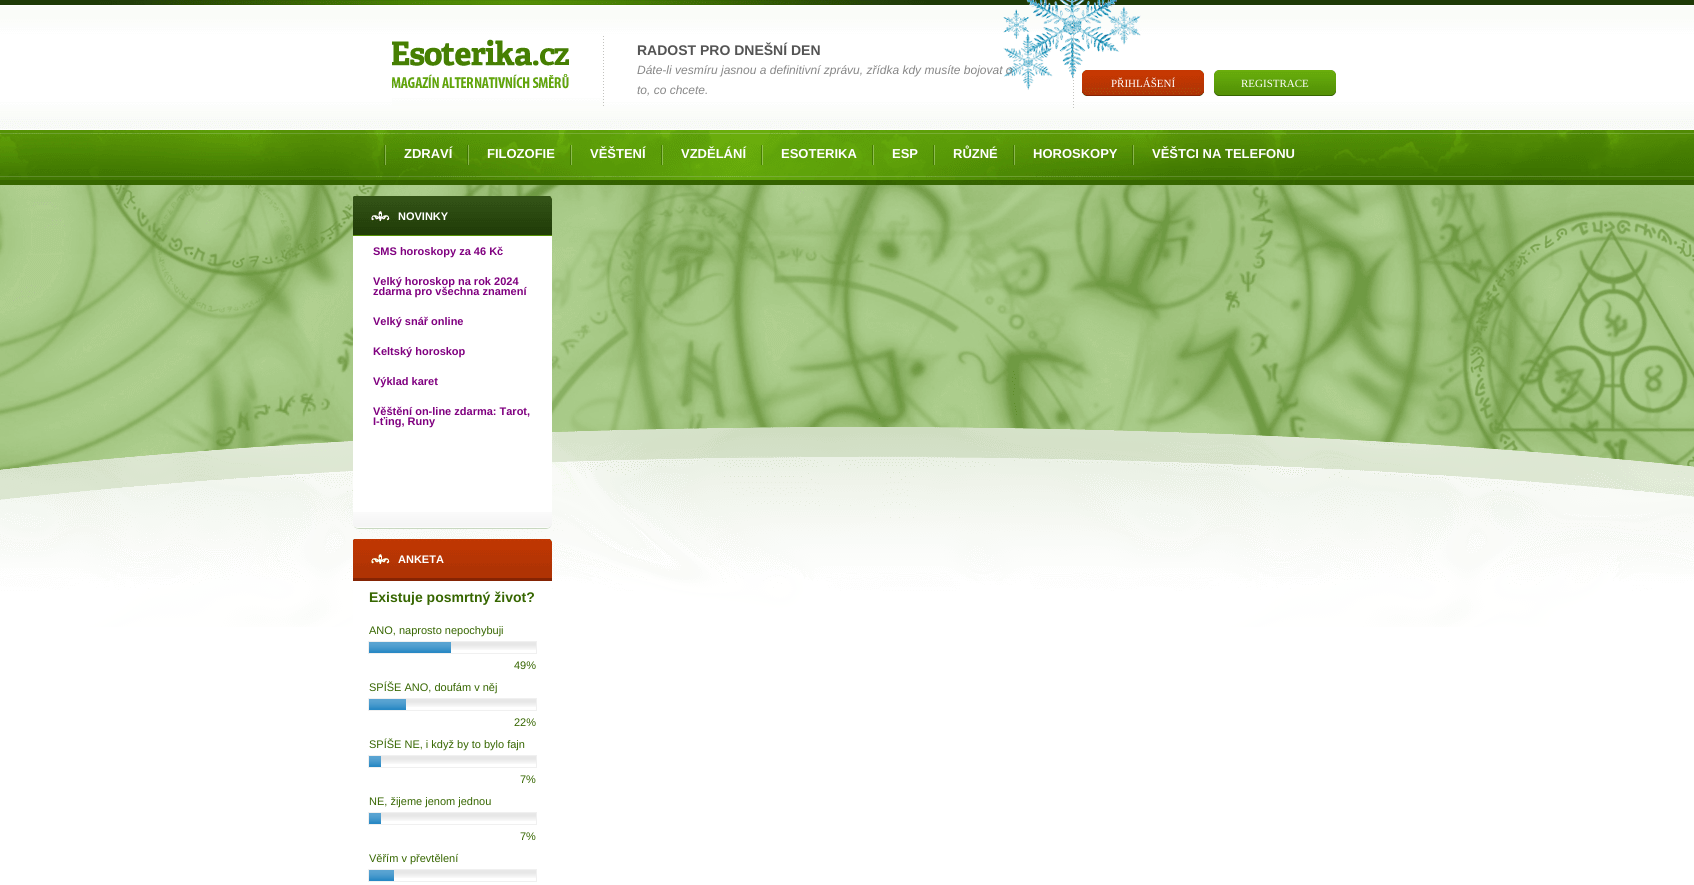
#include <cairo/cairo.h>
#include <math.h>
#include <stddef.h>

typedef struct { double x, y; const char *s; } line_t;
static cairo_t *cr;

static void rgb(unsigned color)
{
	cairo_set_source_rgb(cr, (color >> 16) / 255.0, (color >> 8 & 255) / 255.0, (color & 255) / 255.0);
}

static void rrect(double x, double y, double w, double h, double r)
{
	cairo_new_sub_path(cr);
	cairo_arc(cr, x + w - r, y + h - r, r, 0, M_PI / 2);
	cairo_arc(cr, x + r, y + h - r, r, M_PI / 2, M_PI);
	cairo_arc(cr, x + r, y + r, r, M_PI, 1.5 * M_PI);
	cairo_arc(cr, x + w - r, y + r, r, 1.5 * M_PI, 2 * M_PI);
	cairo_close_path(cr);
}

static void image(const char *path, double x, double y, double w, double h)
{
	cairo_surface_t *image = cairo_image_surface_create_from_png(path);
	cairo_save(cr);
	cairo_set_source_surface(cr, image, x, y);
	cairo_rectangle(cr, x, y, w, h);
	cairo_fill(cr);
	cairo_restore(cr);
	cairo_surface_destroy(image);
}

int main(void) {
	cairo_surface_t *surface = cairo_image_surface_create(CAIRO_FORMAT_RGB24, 1694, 885);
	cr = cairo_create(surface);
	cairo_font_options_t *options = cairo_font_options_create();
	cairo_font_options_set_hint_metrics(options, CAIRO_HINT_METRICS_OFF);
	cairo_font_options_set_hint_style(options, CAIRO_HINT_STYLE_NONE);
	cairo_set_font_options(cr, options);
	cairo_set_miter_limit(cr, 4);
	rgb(0xffffff);
	cairo_paint(cr);
	image("img/1.png", 0, 0, 1694, 627);
	image("img/2.png", 392, 36, 212, 70);
	image("img/3.png", 1003, 0, 138, 108);
	image("img/4.png", 1082, 70, 122, 26);
	image("img/5.png", 1214, 70, 122, 26);
	image("img/6.png", 384, 145, 2, 20);
	image("img/7.png", 467, 145, 2, 20);
	image("img/8.png", 570, 145, 2, 20);
	image("img/9.png", 661, 145, 2, 20);
	image("img/10.png", 761, 145, 2, 20);
	image("img/11.png", 872, 145, 2, 20);
	image("img/12.png", 933, 145, 2, 20);
	image("img/13.png", 1013, 145, 2, 20);
	image("img/14.png", 1132, 145, 2, 20);
	rgb(0xffffff);
	rrect(353, 196, 199, 333, 6);
	cairo_fill(cr);
	image("img/15.png", 353, 512, 199, 17);
	image("img/16.png", 353, 196, 199, 40);
	rrect(353, 539, 199, 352, 6);
	cairo_fill(cr);
	image("img/17.png", 353, 539, 199, 42);
	image("img/18.png", 451, 642, 85, 8);
	cairo_rectangle(cr, 368.5, 641.5, 168, 12);
	rgb(0xf0f0f0);
	cairo_set_line_width(cr, 1);
	cairo_stroke(cr);
	image("img/19.png", 369, 642, 82, 11);
	image("img/20.png", 406, 699, 130, 8);
	cairo_rectangle(cr, 368.5, 698.5, 168, 12);
	cairo_stroke(cr);
	image("img/21.png", 369, 699, 37, 11);
	image("img/22.png", 381, 756, 155, 8);
	cairo_rectangle(cr, 368.5, 755.5, 168, 12);
	cairo_stroke(cr);
	image("img/23.png", 369, 756, 12, 11);
	image("img/22.png", 381, 813, 155, 8);
	cairo_rectangle(cr, 368.5, 812.5, 168, 12);
	cairo_stroke(cr);
	image("img/23.png", 369, 813, 12, 11);
	image("img/24.png", 394, 870, 142, 8);
	cairo_rectangle(cr, 368.5, 869.5, 168, 12);
	cairo_stroke(cr);
	image("img/25.png", 369, 870, 25, 11);
	cairo_select_font_face(cr, "Liberation Sans", CAIRO_FONT_SLANT_NORMAL, CAIRO_FONT_WEIGHT_BOLD);
	cairo_set_font_size(cr, 14);
	rgb(0x545454);
	cairo_move_to(cr, 637, 55);
	cairo_show_text(cr, "RADOST PRO DNEŠNÍ DEN");
	cairo_select_font_face(cr, "Liberation Sans", CAIRO_FONT_SLANT_ITALIC, CAIRO_FONT_WEIGHT_NORMAL);
	cairo_set_font_size(cr, 12);
	rgb(0x878787);
	cairo_move_to(cr, 637, 74);
	cairo_show_text(cr, "Dáte-li vesmíru jasnou a definitivní zprávu, zřídka kdy musíte bojovat o");
	cairo_move_to(cr, 637, 94);
	cairo_show_text(cr, "to, co chcete.");
	cairo_select_font_face(cr, "Liberation Serif", CAIRO_FONT_SLANT_NORMAL, CAIRO_FONT_WEIGHT_NORMAL);
	cairo_set_font_size(cr, 11);
	rgb(0xffffff);
	cairo_move_to(cr, 1111, 87);
	cairo_show_text(cr, "PŘIHLÁŠENÍ");
	cairo_move_to(cr, 1241, 87);
	cairo_show_text(cr, "REGISTRACE");
	cairo_select_font_face(cr, "Liberation Sans", CAIRO_FONT_SLANT_NORMAL, CAIRO_FONT_WEIGHT_BOLD);
	cairo_set_font_size(cr, 13);
	{
		static const line_t items[] = {
			{404, 158, "ZDRAVÍ"},
			{487, 158, "FILOZOFIE"},
			{590, 158, "VĚŠTENÍ"},
			{681, 158, "VZDĚLÁNÍ"},
			{781, 158, "ESOTERIKA"},
			{892, 158, "ESP"},
			{953, 158, "RŮZNÉ"},
			{1033, 158, "HOROSKOPY"},
			{1152, 158, "VĚŠTCI NA TELEFONU"},
		};
		for (size_t i = 0; i < sizeof items / sizeof *items; i++) {
			cairo_move_to(cr, items[i].x, items[i].y);
			cairo_show_text(cr, items[i].s);
		}
	}
	cairo_set_font_size(cr, 11);
	cairo_move_to(cr, 398, 220);
	cairo_show_text(cr, "NOVINKY");
	rgb(0x800080);
	{
		static const line_t items[] = {
			{373, 255, "SMS horoskopy za 46 Kč"},
			{373, 285, "Velký horoskop na rok 2024"},
			{373, 295, "zdarma pro všechna znamení"},
			{373, 325, "Velký snář online"},
			{373, 355, "Keltský horoskop"},
			{373, 385, "Výklad karet"},
			{373, 415, "Věštění on-line zdarma: Tarot,"},
			{373, 425, "I-ťing, Runy"},
		};
		for (size_t i = 0; i < sizeof items / sizeof *items; i++) {
			cairo_move_to(cr, items[i].x, items[i].y);
			cairo_show_text(cr, items[i].s);
		}
	}
	rgb(0xffffff);
	cairo_move_to(cr, 398, 563);
	cairo_show_text(cr, "ANKETA");
	cairo_set_font_size(cr, 14);
	rgb(0x366600);
	cairo_move_to(cr, 369, 602);
	cairo_show_text(cr, "Existuje posmrtný život?");
	cairo_select_font_face(cr, "Liberation Sans", CAIRO_FONT_SLANT_NORMAL, CAIRO_FONT_WEIGHT_NORMAL);
	cairo_set_font_size(cr, 11);
	{
		static const line_t items[] = {
			{369, 634, "ANO, naprosto nepochybuji"},
			{514, 669, "49%"},
			{369, 691, "SPÍŠE ANO, doufám v něj"},
			{514, 726, "22%"},
			{369, 748, "SPÍŠE NE, i když by to bylo fajn"},
			{520, 783, "7%"},
			{369, 805, "NE, žijeme jenom jednou"},
			{520, 840, "7%"},
			{369, 862, "Věřím v převtělení"},
		};
		for (size_t i = 0; i < sizeof items / sizeof *items; i++) {
			cairo_move_to(cr, items[i].x, items[i].y);
			cairo_show_text(cr, items[i].s);
		}
	}
	cairo_surface_write_to_png(surface, "page.png");
	cairo_font_options_destroy(options);
	cairo_destroy(cr);
	cairo_surface_destroy(surface);
	return 0;
}
